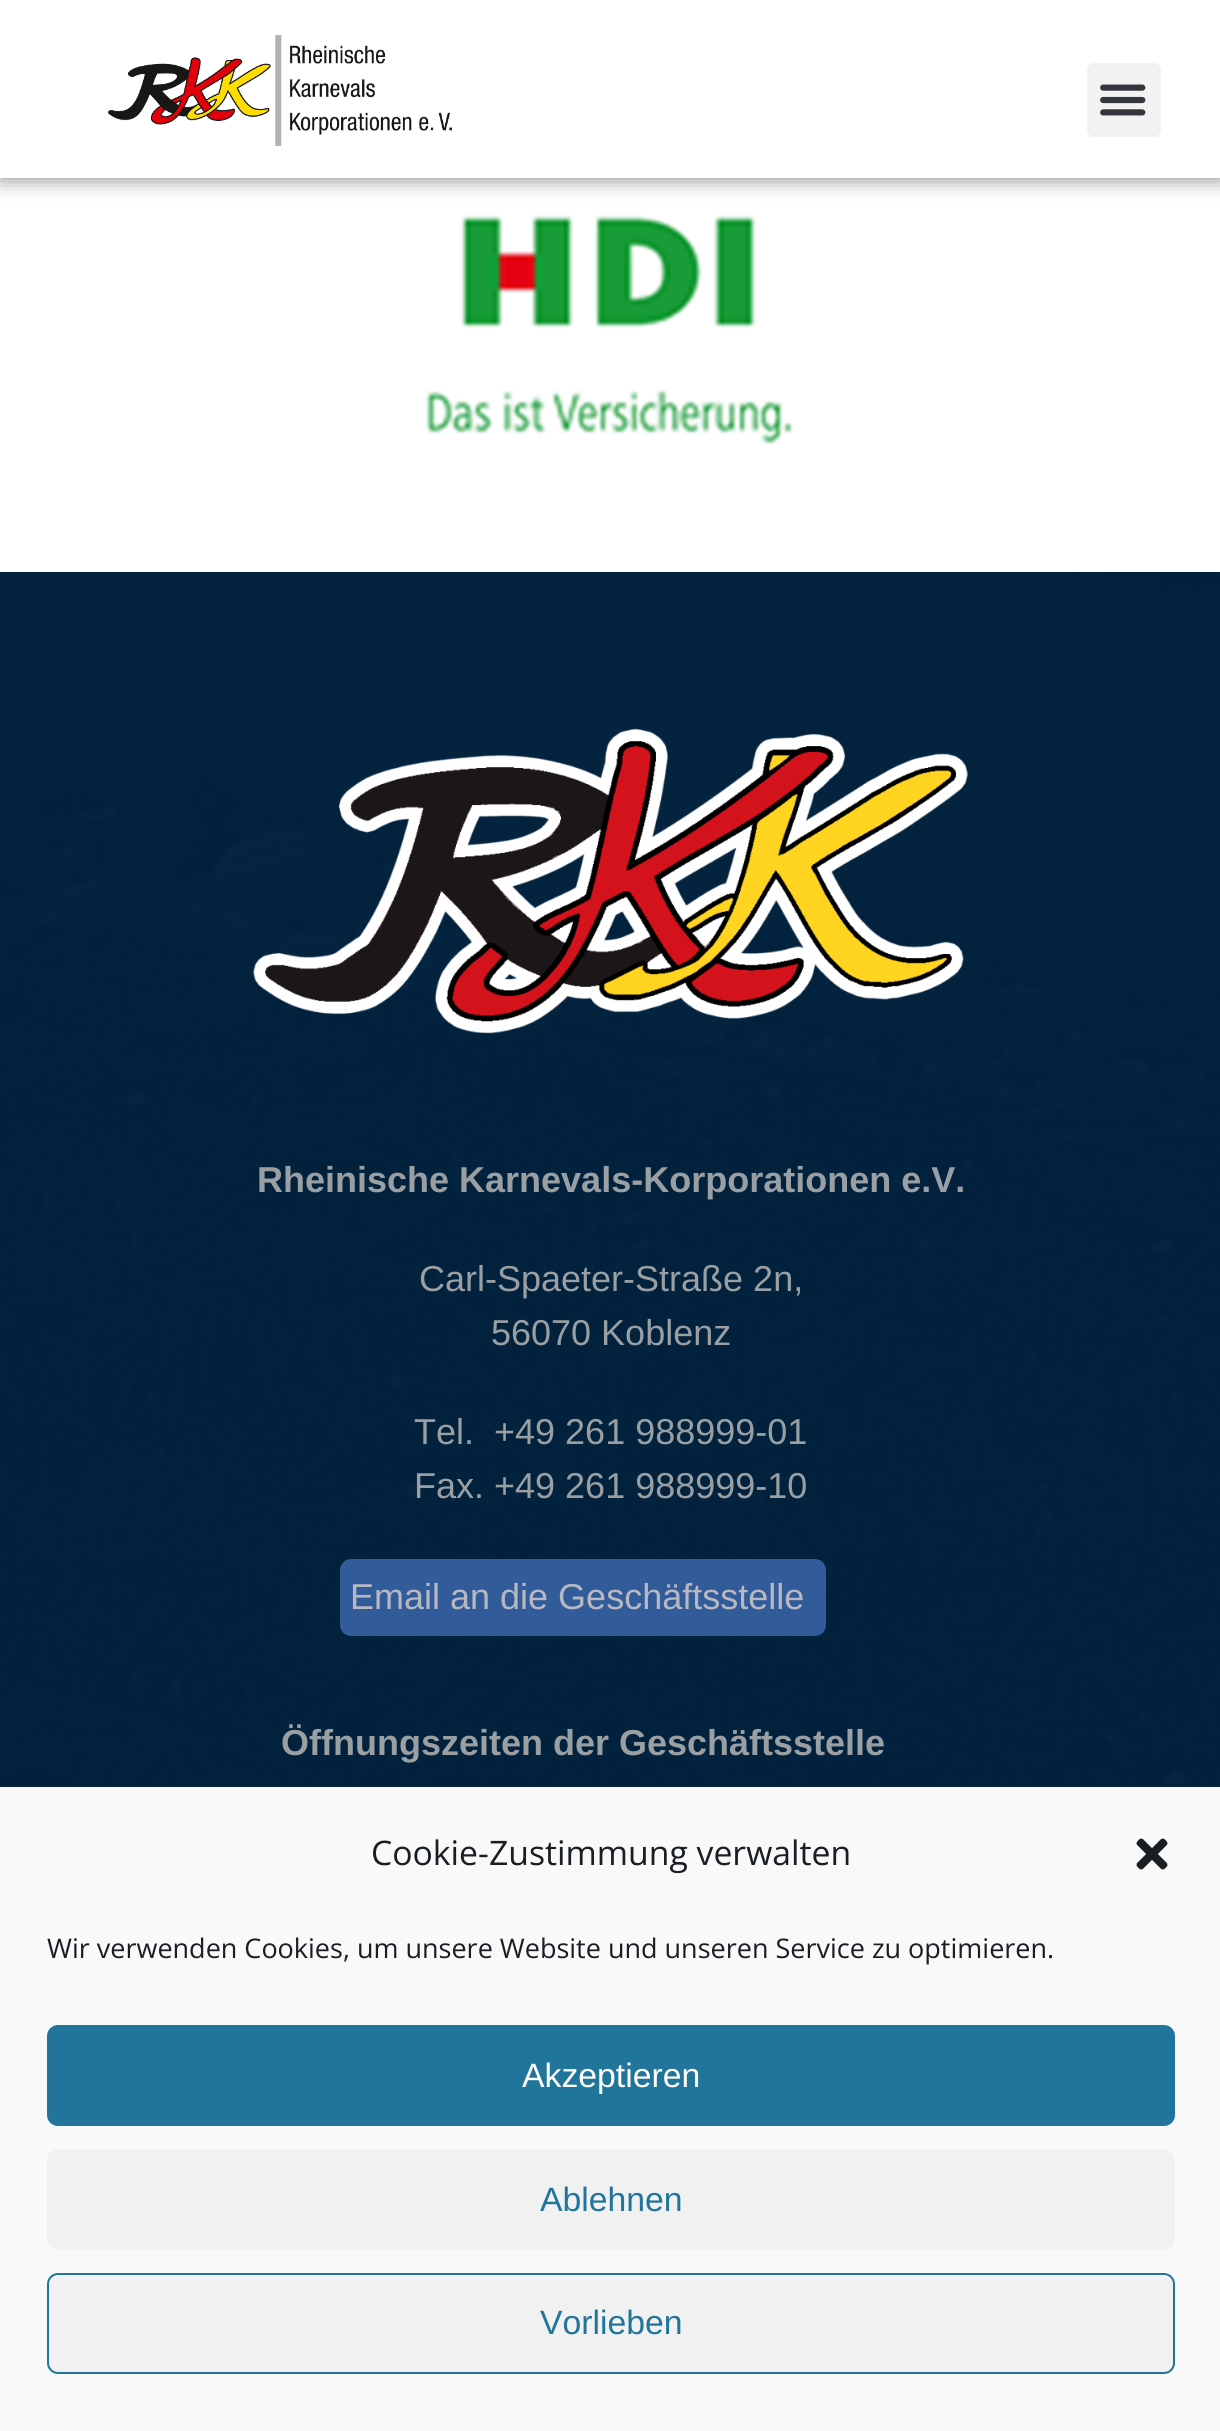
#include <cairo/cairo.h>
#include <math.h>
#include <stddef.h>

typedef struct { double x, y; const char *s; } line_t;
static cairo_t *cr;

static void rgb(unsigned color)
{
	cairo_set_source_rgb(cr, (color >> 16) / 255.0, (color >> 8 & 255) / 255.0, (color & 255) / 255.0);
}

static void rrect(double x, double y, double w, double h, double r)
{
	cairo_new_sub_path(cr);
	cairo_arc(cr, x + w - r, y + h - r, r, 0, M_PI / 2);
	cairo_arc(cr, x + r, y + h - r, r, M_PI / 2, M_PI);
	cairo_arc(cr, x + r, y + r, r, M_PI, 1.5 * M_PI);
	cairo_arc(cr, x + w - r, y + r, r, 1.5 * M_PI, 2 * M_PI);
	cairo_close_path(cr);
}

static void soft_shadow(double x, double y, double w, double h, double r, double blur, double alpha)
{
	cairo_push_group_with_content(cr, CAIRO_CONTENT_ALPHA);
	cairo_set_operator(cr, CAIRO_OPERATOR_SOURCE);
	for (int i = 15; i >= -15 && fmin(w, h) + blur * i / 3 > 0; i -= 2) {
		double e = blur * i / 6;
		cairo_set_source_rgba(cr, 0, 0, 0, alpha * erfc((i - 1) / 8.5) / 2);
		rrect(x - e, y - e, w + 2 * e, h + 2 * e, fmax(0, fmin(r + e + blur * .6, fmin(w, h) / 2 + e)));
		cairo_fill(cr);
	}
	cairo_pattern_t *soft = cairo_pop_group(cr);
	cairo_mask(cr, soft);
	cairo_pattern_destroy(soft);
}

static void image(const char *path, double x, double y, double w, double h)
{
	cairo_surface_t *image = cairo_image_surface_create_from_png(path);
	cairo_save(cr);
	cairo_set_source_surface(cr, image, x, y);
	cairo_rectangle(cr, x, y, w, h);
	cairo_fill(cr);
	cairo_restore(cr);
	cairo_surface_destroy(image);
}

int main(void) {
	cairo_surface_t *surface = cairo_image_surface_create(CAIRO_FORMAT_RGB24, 1220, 2431);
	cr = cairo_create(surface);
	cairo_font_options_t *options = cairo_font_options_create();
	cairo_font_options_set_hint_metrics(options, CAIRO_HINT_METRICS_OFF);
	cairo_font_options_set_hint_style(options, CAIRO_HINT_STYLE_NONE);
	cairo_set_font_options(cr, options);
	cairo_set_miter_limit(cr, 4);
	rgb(0xffffff);
	cairo_paint(cr);
	image("img/1.png", 0, 572, 1220, 1215);
	image("img/4.png", 366, 178, 487, 267);
	rgb(0x000000);
	soft_shadow(0, 0, 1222, 178, 0, 11, 0.5);
	rgb(0xffffff);
	cairo_rectangle(cr, 0, 0, 1220, 178);
	cairo_fill(cr);
	image("img/2.png", 108, 34, 344, 112);
	rgb(0xf2f2f2);
	rrect(1087, 63, 74, 74, 7);
	cairo_fill(cr);
	image("img/3.png", 1100, 84, 46, 32);
	cairo_set_source_rgba(cr, 0.004, 0.133, 0.247, 0.94);
	cairo_rectangle(cr, 0, 572, 1220, 1215);
	cairo_fill(cr);
	image("img/5.png", 253, 728, 715, 306);
	rgb(0x315c99);
	rrect(340, 1559, 486, 77, 11);
	cairo_fill(cr);
	rgb(0xf9f9f9);
	cairo_rectangle(cr, 0, 1787, 1220, 644);
	cairo_fill(cr);
	image("img/6.png", 1136, 1838, 32, 32);
	rgb(0x21759b);
	rrect(48, 2026, 1126, 99, 10);
	cairo_fill_preserve(cr);
	cairo_stroke(cr);
	rgb(0xf1f1f1);
	rrect(47, 2149, 1128, 101, 11);
	cairo_fill(cr);
	rrect(48, 2274, 1126, 99, 10);
	cairo_fill_preserve(cr);
	rgb(0x21759b);
	cairo_stroke(cr);
	cairo_select_font_face(cr, "Liberation Sans", CAIRO_FONT_SLANT_NORMAL, CAIRO_FONT_WEIGHT_BOLD);
	cairo_set_font_size(cr, 36);
	rgb(0x9a9fa4);
	cairo_move_to(cr, 257, 1192);
	cairo_show_text(cr, "Rheinische Karnevals-Korporationen e.V.");
	cairo_select_font_face(cr, "Liberation Sans", CAIRO_FONT_SLANT_NORMAL, CAIRO_FONT_WEIGHT_NORMAL);
	{
		static const line_t items[] = {
			{419, 1291, "Carl-Spaeter-Straße 2n,"},
			{491, 1345, "56070 Koblenz"},
			{414, 1444, "Tel.  +49 261 988999-01"},
			{414, 1498, "Fax. +49 261 988999-10"},
		};
		for (size_t i = 0; i < sizeof items / sizeof *items; i++) {
			cairo_move_to(cr, items[i].x, items[i].y);
			cairo_show_text(cr, items[i].s);
		}
	}
	rgb(0xb8b8c3);
	cairo_move_to(cr, 350, 1609);
	cairo_show_text(cr, "Email an die Geschäftsstelle");
	cairo_select_font_face(cr, "Liberation Sans", CAIRO_FONT_SLANT_NORMAL, CAIRO_FONT_WEIGHT_BOLD);
	rgb(0x9a9fa4);
	cairo_move_to(cr, 281, 1755);
	cairo_show_text(cr, "Öffnungszeiten der Geschäftsstelle");
	cairo_select_font_face(cr, "Open Sans", CAIRO_FONT_SLANT_NORMAL, CAIRO_FONT_WEIGHT_NORMAL);
	cairo_set_font_size(cr, 33.75);
	rgb(0x191e23);
	cairo_move_to(cr, 371, 1865);
	cairo_show_text(cr, "Cookie-Zustimmung verwalten");
	cairo_set_font_size(cr, 27);
	cairo_move_to(cr, 47, 1958);
	cairo_show_text(cr, "Wir verwenden Cookies, um unsere Website und unseren Service zu optimieren.");
	cairo_select_font_face(cr, "Liberation Sans", CAIRO_FONT_SLANT_NORMAL, CAIRO_FONT_WEIGHT_NORMAL);
	cairo_set_font_size(cr, 33.75);
	rgb(0xffffff);
	cairo_move_to(cr, 522, 2087);
	cairo_show_text(cr, "Akzeptieren");
	rgb(0x21759b);
	cairo_move_to(cr, 540, 2211);
	cairo_show_text(cr, "Ablehnen");
	cairo_move_to(cr, 540, 2334);
	cairo_show_text(cr, "Vorlieben");
	cairo_surface_write_to_png(surface, "page.png");
	cairo_font_options_destroy(options);
	cairo_destroy(cr);
	cairo_surface_destroy(surface);
	return 0;
}
